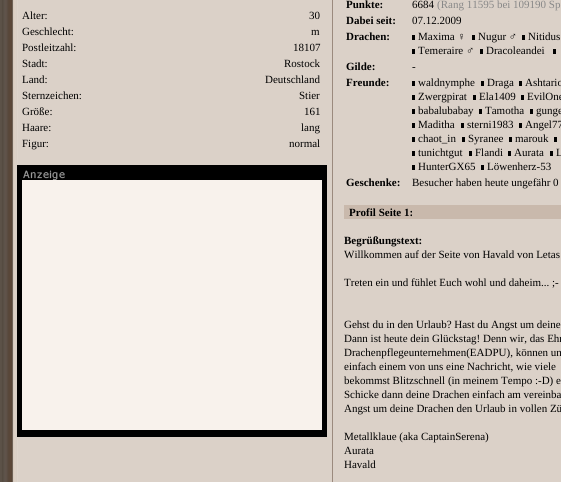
#include <cairo/cairo.h>
#include <math.h>
#include <stddef.h>

typedef struct { double x, y; const char *s; } line_t;
typedef struct { double x, y, w, h; unsigned color; } box_t;
static cairo_t *cr;

static void rgb(unsigned color)
{
	cairo_set_source_rgb(cr, (color >> 16) / 255.0, (color >> 8 & 255) / 255.0, (color & 255) / 255.0);
}

static void image(const char *path, double x, double y, double w, double h)
{
	cairo_surface_t *image = cairo_image_surface_create_from_png(path);
	cairo_save(cr);
	cairo_set_source_surface(cr, image, x, y);
	cairo_rectangle(cr, x, y, w, h);
	cairo_fill(cr);
	cairo_restore(cr);
	cairo_surface_destroy(image);
}

int main(void) {
	cairo_surface_t *surface = cairo_image_surface_create(CAIRO_FORMAT_RGB24, 561, 482);
	cr = cairo_create(surface);
	cairo_font_options_t *options = cairo_font_options_create();
	cairo_font_options_set_hint_metrics(options, CAIRO_HINT_METRICS_OFF);
	cairo_font_options_set_hint_style(options, CAIRO_HINT_STYLE_NONE);
	cairo_set_font_options(cr, options);
	cairo_set_miter_limit(cr, 4);
	rgb(0xffffff);
	cairo_paint(cr);
	image("img/1.png", 0, 0, 561, 482);
	rgb(0x9b8a7e);
	cairo_rectangle(cr, 332, 0, 1, 482);
	cairo_fill(cr);
	rgb(0x000000);
	cairo_rectangle(cr, 17, 165, 310, 272);
	cairo_fill(cr);
	image("img/2.png", 23, 170, 42, 10);
	{
		static const box_t items[] = {
			{22, 180, 300, 250, 0xf8f2ec},
			{412, 35, 3, 5, 0x010101},
			{472, 35, 3, 5, 0x010101},
			{522, 35, 3, 5, 0x010101},
			{412, 49, 3, 5, 0x010101},
			{480, 49, 3, 5, 0x010101},
			{553, 49, 3, 5, 0x010101},
			{412, 81, 3, 5, 0x010101},
			{481, 81, 3, 5, 0x010101},
			{519, 81, 3, 5, 0x010101},
			{412, 95, 3, 5, 0x010101},
			{473, 95, 3, 5, 0x010101},
			{521, 95, 3, 5, 0x010101},
			{412, 109, 3, 5, 0x010101},
			{479, 109, 3, 5, 0x010101},
			{530, 109, 3, 5, 0x010101},
			{412, 123, 3, 5, 0x010101},
			{461, 123, 3, 5, 0x010101},
			{519, 123, 3, 5, 0x010101},
			{412, 137, 3, 5, 0x010101},
			{462, 137, 3, 5, 0x010101},
			{509, 137, 3, 5, 0x010101},
			{554, 137, 3, 5, 0x010101},
			{412, 151, 3, 5, 0x010101},
			{469, 151, 3, 5, 0x010101},
			{508, 151, 3, 5, 0x010101},
			{550, 151, 3, 5, 0x010101},
			{412, 165, 3, 5, 0x010101},
			{481, 165, 3, 5, 0x010101},
			{344, 205, 217, 14, 0xc9b9ac},
		};
		for (size_t i = 0; i < sizeof items / sizeof *items; i++) {
			rgb(items[i].color);
			cairo_rectangle(cr, items[i].x, items[i].y, items[i].w, items[i].h);
			cairo_fill(cr);
		}
	}
	cairo_select_font_face(cr, "Liberation Serif", CAIRO_FONT_SLANT_NORMAL, CAIRO_FONT_WEIGHT_NORMAL);
	cairo_set_font_size(cr, 11);
	rgb(0x000000);
	{
		static const line_t items[] = {
			{22, 19, "Alter:"},
			{309, 19, "30"},
			{22, 35, "Geschlecht:"},
			{311, 35, "m"},
			{22, 51, "Postleitzahl:"},
			{293, 51, "18107"},
			{22, 67, "Stadt:"},
			{284, 67, "Rostock"},
			{22, 83, "Land:"},
			{265, 83, "Deutschland"},
			{22, 99, "Sternzeichen:"},
			{299, 99, "Stier"},
			{22, 115, "Größe:"},
			{304, 115, "161"},
			{22, 131, "Haare:"},
			{301, 131, "lang"},
			{22, 147, "Figur:"},
			{289, 147, "normal"},
		};
		for (size_t i = 0; i < sizeof items / sizeof *items; i++) {
			cairo_move_to(cr, items[i].x, items[i].y);
			cairo_show_text(cr, items[i].s);
		}
	}
	cairo_select_font_face(cr, "Liberation Serif", CAIRO_FONT_SLANT_NORMAL, CAIRO_FONT_WEIGHT_BOLD);
	cairo_move_to(cr, 346, 8);
	cairo_show_text(cr, "Punkte:");
	cairo_select_font_face(cr, "Liberation Serif", CAIRO_FONT_SLANT_NORMAL, CAIRO_FONT_WEIGHT_NORMAL);
	cairo_move_to(cr, 412, 8);
	cairo_show_text(cr, "6684");
	rgb(0x888888);
	cairo_move_to(cr, 437, 8);
	cairo_show_text(cr, "(Rang 11595 bei 109190 Sp");
	cairo_select_font_face(cr, "Liberation Serif", CAIRO_FONT_SLANT_NORMAL, CAIRO_FONT_WEIGHT_BOLD);
	rgb(0x000000);
	cairo_move_to(cr, 346, 24);
	cairo_show_text(cr, "Dabei seit:");
	cairo_select_font_face(cr, "Liberation Serif", CAIRO_FONT_SLANT_NORMAL, CAIRO_FONT_WEIGHT_NORMAL);
	cairo_move_to(cr, 412, 24);
	cairo_show_text(cr, "07.12.2009");
	cairo_select_font_face(cr, "Liberation Serif", CAIRO_FONT_SLANT_NORMAL, CAIRO_FONT_WEIGHT_BOLD);
	cairo_move_to(cr, 346, 40);
	cairo_show_text(cr, "Drachen:");
	cairo_select_font_face(cr, "Liberation Serif", CAIRO_FONT_SLANT_NORMAL, CAIRO_FONT_WEIGHT_NORMAL);
	{
		static const line_t items[] = {
			{418, 40, "Maxima ♀"},
			{478, 40, "Nugur ♂"},
			{528, 40, "Nitidus"},
			{418, 54, "Temeraire ♂"},
			{486, 54, "Dracoleandei"},
		};
		for (size_t i = 0; i < sizeof items / sizeof *items; i++) {
			cairo_move_to(cr, items[i].x, items[i].y);
			cairo_show_text(cr, items[i].s);
		}
	}
	cairo_select_font_face(cr, "Liberation Serif", CAIRO_FONT_SLANT_NORMAL, CAIRO_FONT_WEIGHT_BOLD);
	cairo_move_to(cr, 346, 70);
	cairo_show_text(cr, "Gilde:");
	cairo_select_font_face(cr, "Liberation Serif", CAIRO_FONT_SLANT_NORMAL, CAIRO_FONT_WEIGHT_NORMAL);
	cairo_move_to(cr, 412, 70);
	cairo_show_text(cr, "-");
	cairo_select_font_face(cr, "Liberation Serif", CAIRO_FONT_SLANT_NORMAL, CAIRO_FONT_WEIGHT_BOLD);
	cairo_move_to(cr, 346, 86);
	cairo_show_text(cr, "Freunde:");
	cairo_select_font_face(cr, "Liberation Serif", CAIRO_FONT_SLANT_NORMAL, CAIRO_FONT_WEIGHT_NORMAL);
	{
		static const line_t items[] = {
			{418, 86, "waldnymphe"},
			{487, 86, "Draga"},
			{525, 86, "Ashtario"},
			{418, 100, "Zwergpirat"},
			{479, 100, "Ela1409"},
			{527, 100, "EvilOne"},
			{418, 114, "babalubabay"},
			{485, 114, "Tamotha"},
			{536, 114, "gunge"},
			{418, 128, "Maditha"},
			{467, 128, "sterni1983"},
			{525, 128, "Angel77"},
			{418, 142, "chaot_in"},
			{468, 142, "Syranee"},
			{515, 142, "marouk"},
			{418, 156, "tunichtgut"},
			{475, 156, "Flandi"},
			{514, 156, "Aurata"},
			{556, 156, "L"},
			{418, 170, "HunterGX65"},
			{487, 170, "Löwenherz-53"},
		};
		for (size_t i = 0; i < sizeof items / sizeof *items; i++) {
			cairo_move_to(cr, items[i].x, items[i].y);
			cairo_show_text(cr, items[i].s);
		}
	}
	cairo_select_font_face(cr, "Liberation Serif", CAIRO_FONT_SLANT_NORMAL, CAIRO_FONT_WEIGHT_BOLD);
	cairo_move_to(cr, 346, 186);
	cairo_show_text(cr, "Geschenke:");
	cairo_select_font_face(cr, "Liberation Serif", CAIRO_FONT_SLANT_NORMAL, CAIRO_FONT_WEIGHT_NORMAL);
	cairo_move_to(cr, 412, 186);
	cairo_show_text(cr, "Besucher haben heute ungefähr 0");
	cairo_select_font_face(cr, "Liberation Serif", CAIRO_FONT_SLANT_NORMAL, CAIRO_FONT_WEIGHT_BOLD);
	cairo_move_to(cr, 349, 216);
	cairo_show_text(cr, "Profil Seite 1:");
	cairo_move_to(cr, 344, 244);
	cairo_show_text(cr, "Begrüßungstext:");
	cairo_select_font_face(cr, "Liberation Serif", CAIRO_FONT_SLANT_NORMAL, CAIRO_FONT_WEIGHT_NORMAL);
	{
		static const line_t items[] = {
			{344, 258, "Willkommen auf der Seite von Havald von Letas"},
			{344, 286, "Treten ein und fühlet Euch wohl und daheim... ;-"},
			{344, 328, "Gehst du in den Urlaub? Hast du Angst um deine"},
			{344, 342, "Dann ist heute dein Glückstag! Denn wir, das Ehr"},
			{344, 356, "Drachenpflegeunternehmen(EADPU), können un"},
			{344, 370, "einfach einem von uns eine Nachricht, wie viele"},
			{344, 384, "bekommst Blitzschnell (in meinem Tempo :-D) e"},
			{344, 398, "Schicke dann deine Drachen einfach am vereinba"},
			{344, 412, "Angst um deine Drachen den Urlaub in vollen Zü"},
			{344, 440, "Metallklaue (aka CaptainSerena)"},
			{344, 454, "Aurata"},
			{344, 468, "Havald"},
		};
		for (size_t i = 0; i < sizeof items / sizeof *items; i++) {
			cairo_move_to(cr, items[i].x, items[i].y);
			cairo_show_text(cr, items[i].s);
		}
	}
	cairo_surface_write_to_png(surface, "page.png");
	cairo_font_options_destroy(options);
	cairo_destroy(cr);
	cairo_surface_destroy(surface);
	return 0;
}
